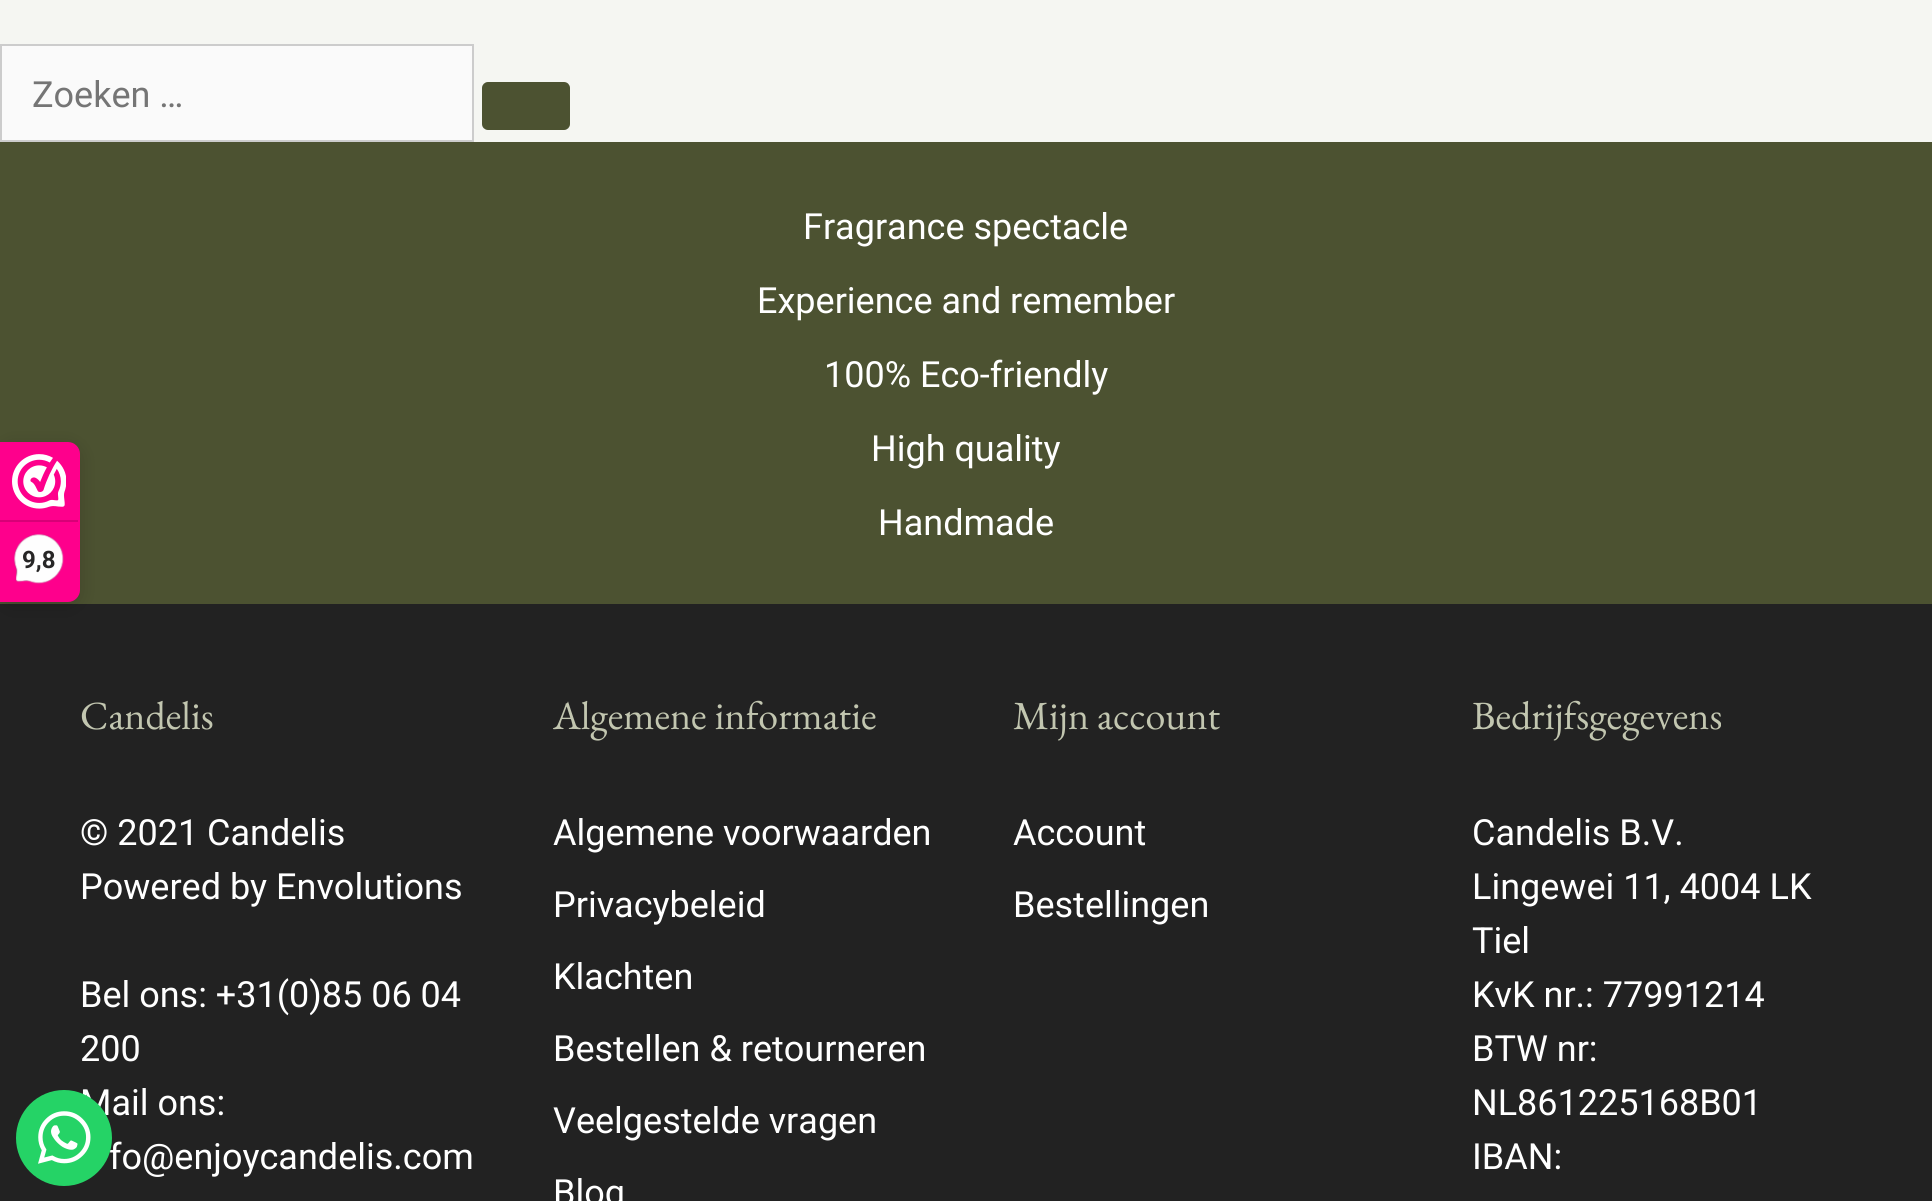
#include <cairo/cairo.h>
#include <math.h>
#include <stddef.h>

typedef struct { double x, y; const char *s; } line_t;
static cairo_t *cr;

static void rgb(unsigned color)
{
	cairo_set_source_rgb(cr, (color >> 16) / 255.0, (color >> 8 & 255) / 255.0, (color & 255) / 255.0);
}

static void rrect(double x, double y, double w, double h, double r)
{
	cairo_new_sub_path(cr);
	cairo_arc(cr, x + w - r, y + h - r, r, 0, M_PI / 2);
	cairo_arc(cr, x + r, y + h - r, r, M_PI / 2, M_PI);
	cairo_arc(cr, x + r, y + r, r, M_PI, 1.5 * M_PI);
	cairo_arc(cr, x + w - r, y + r, r, 1.5 * M_PI, 2 * M_PI);
	cairo_close_path(cr);
}

static void soft_shadow(double x, double y, double w, double h, double r, double blur, double alpha)
{
	cairo_push_group_with_content(cr, CAIRO_CONTENT_ALPHA);
	cairo_set_operator(cr, CAIRO_OPERATOR_SOURCE);
	for (int i = 15; i >= -15 && fmin(w, h) + blur * i / 3 > 0; i -= 2) {
		double e = blur * i / 6;
		cairo_set_source_rgba(cr, 0, 0, 0, alpha * erfc((i - 1) / 8.5) / 2);
		rrect(x - e, y - e, w + 2 * e, h + 2 * e, fmax(0, fmin(r + e + blur * .6, fmin(w, h) / 2 + e)));
		cairo_fill(cr);
	}
	cairo_pattern_t *soft = cairo_pop_group(cr);
	cairo_mask(cr, soft);
	cairo_pattern_destroy(soft);
}

static void image(const char *path, double x, double y, double w, double h)
{
	cairo_surface_t *image = cairo_image_surface_create_from_png(path);
	cairo_save(cr);
	cairo_set_source_surface(cr, image, x, y);
	cairo_rectangle(cr, x, y, w, h);
	cairo_fill(cr);
	cairo_restore(cr);
	cairo_surface_destroy(image);
}

int main(void) {
	cairo_surface_t *surface = cairo_image_surface_create(CAIRO_FORMAT_RGB24, 1932, 1201);
	cr = cairo_create(surface);
	cairo_font_options_t *options = cairo_font_options_create();
	cairo_font_options_set_hint_metrics(options, CAIRO_HINT_METRICS_OFF);
	cairo_font_options_set_hint_style(options, CAIRO_HINT_STYLE_NONE);
	cairo_set_font_options(cr, options);
	cairo_set_miter_limit(cr, 4);
	rgb(0xf5f6f2);
	cairo_paint(cr);
	rgb(0xfafafa);
	cairo_rectangle(cr, 1, 45, 472, 96);
	cairo_fill_preserve(cr);
	rgb(0xcccccc);
	cairo_stroke(cr);
	rgb(0x4c5231);
	rrect(484, 84, 84, 44, 4);
	cairo_fill_preserve(cr);
	cairo_set_line_width(cr, 4);
	cairo_stroke(cr);
	cairo_rectangle(cr, 0, 142, 1932, 462);
	cairo_fill(cr);
	rgb(0x222222);
	cairo_rectangle(cr, 0, 604, 1932, 597);
	cairo_fill(cr);
	rgb(0x000000);
	soft_shadow(0, 446, 80, 160, 12, 10, 0.15);
	rgb(0xfe008c);
	cairo_new_path(cr);
	cairo_move_to(cr, 0, 442);
	cairo_line_to(cr, 68, 442);
	cairo_curve_to(cr, 74.5, 442, 80, 447.5, 80, 454);
	cairo_line_to(cr, 80, 590);
	cairo_curve_to(cr, 80, 596.5, 74.5, 602, 68, 602);
	cairo_line_to(cr, 0, 602);
	cairo_close_path(cr);
	cairo_fill(cr);
	image("img/1.png", 12, 454, 54, 55);
	rgb(0xd80077);
	cairo_rectangle(cr, 0, 520, 78, 2);
	cairo_fill(cr);
	image("img/2.png", 14, 534, 50, 50);
	cairo_select_font_face(cr, "Roboto", CAIRO_FONT_SLANT_NORMAL, CAIRO_FONT_WEIGHT_NORMAL);
	cairo_set_font_size(cr, 36);
	rgb(0x757575);
	cairo_move_to(cr, 32, 107);
	cairo_show_text(cr, "Zoeken …");
	rgb(0xffffff);
	{
		static const line_t items[] = {
			{803, 239, "Fragrance spectacle"},
			{757, 313, "Experience and remember"},
			{824, 387, "100% Eco-friendly"},
			{871, 461, "High quality"},
			{878, 535, "Handmade"},
		};
		for (size_t i = 0; i < sizeof items / sizeof *items; i++) {
			cairo_move_to(cr, items[i].x, items[i].y);
			cairo_show_text(cr, items[i].s);
		}
	}
	cairo_select_font_face(cr, "Roboto", CAIRO_FONT_SLANT_NORMAL, CAIRO_FONT_WEIGHT_BOLD);
	cairo_set_font_size(cr, 24);
	rgb(0x272626);
	cairo_move_to(cr, 22, 568);
	cairo_show_text(cr, "9,8");
	cairo_select_font_face(cr, "EB Garamond", CAIRO_FONT_SLANT_NORMAL, CAIRO_FONT_WEIGHT_NORMAL);
	cairo_set_font_size(cr, 40);
	rgb(0xc2c6b0);
	cairo_move_to(cr, 80, 729);
	cairo_show_text(cr, "Candelis");
	cairo_select_font_face(cr, "Roboto", CAIRO_FONT_SLANT_NORMAL, CAIRO_FONT_WEIGHT_NORMAL);
	cairo_set_font_size(cr, 36);
	rgb(0xffffff);
	{
		static const line_t items[] = {
			{80, 845, "© 2021 Candelis"},
			{80, 899, "Powered by Envolutions"},
			{80, 1007, "Bel ons: +31(0)85 06 04"},
			{80, 1061, "200"},
			{80, 1115, "Mail ons:"},
			{109, 1169, "fo@enjoycandelis.com"},
		};
		for (size_t i = 0; i < sizeof items / sizeof *items; i++) {
			cairo_move_to(cr, items[i].x, items[i].y);
			cairo_show_text(cr, items[i].s);
		}
	}
	rgb(0x25d366);
	cairo_new_path(cr);
	cairo_arc(cr, 64, 1138, 48, 0, 2 * M_PI);
	cairo_fill(cr);
	image("img/3.png", 38, 1111, 53, 53);
	cairo_select_font_face(cr, "EB Garamond", CAIRO_FONT_SLANT_NORMAL, CAIRO_FONT_WEIGHT_NORMAL);
	cairo_set_font_size(cr, 40);
	rgb(0xc2c6b0);
	cairo_move_to(cr, 553, 729);
	cairo_show_text(cr, "Algemene informatie");
	cairo_select_font_face(cr, "Roboto", CAIRO_FONT_SLANT_NORMAL, CAIRO_FONT_WEIGHT_NORMAL);
	cairo_set_font_size(cr, 36);
	rgb(0xffffff);
	{
		static const line_t items[] = {
			{553, 845, "Algemene voorwaarden"},
			{553, 917, "Privacybeleid"},
			{553, 989, "Klachten"},
			{553, 1061, "Bestellen & retourneren"},
			{553, 1133, "Veelgestelde vragen"},
			{553, 1205, "Blog"},
		};
		for (size_t i = 0; i < sizeof items / sizeof *items; i++) {
			cairo_move_to(cr, items[i].x, items[i].y);
			cairo_show_text(cr, items[i].s);
		}
	}
	cairo_select_font_face(cr, "EB Garamond", CAIRO_FONT_SLANT_NORMAL, CAIRO_FONT_WEIGHT_NORMAL);
	cairo_set_font_size(cr, 40);
	rgb(0xc2c6b0);
	cairo_move_to(cr, 1013, 729);
	cairo_show_text(cr, "Mijn account");
	cairo_select_font_face(cr, "Roboto", CAIRO_FONT_SLANT_NORMAL, CAIRO_FONT_WEIGHT_NORMAL);
	cairo_set_font_size(cr, 36);
	rgb(0xffffff);
	cairo_move_to(cr, 1013, 845);
	cairo_show_text(cr, "Account");
	cairo_move_to(cr, 1013, 917);
	cairo_show_text(cr, "Bestellingen");
	cairo_select_font_face(cr, "EB Garamond", CAIRO_FONT_SLANT_NORMAL, CAIRO_FONT_WEIGHT_NORMAL);
	cairo_set_font_size(cr, 40);
	rgb(0xc2c6b0);
	cairo_move_to(cr, 1472, 729);
	cairo_show_text(cr, "Bedrijfsgegevens");
	cairo_select_font_face(cr, "Roboto", CAIRO_FONT_SLANT_NORMAL, CAIRO_FONT_WEIGHT_NORMAL);
	cairo_set_font_size(cr, 36);
	rgb(0xffffff);
	{
		static const line_t items[] = {
			{1472, 845, "Candelis B.V."},
			{1472, 899, "Lingewei 11, 4004 LK"},
			{1472, 953, "Tiel"},
			{1472, 1007, "KvK nr.: 77991214"},
			{1472, 1061, "BTW nr:"},
			{1472, 1115, "NL861225168B01"},
			{1472, 1169, "IBAN:"},
		};
		for (size_t i = 0; i < sizeof items / sizeof *items; i++) {
			cairo_move_to(cr, items[i].x, items[i].y);
			cairo_show_text(cr, items[i].s);
		}
	}
	cairo_surface_write_to_png(surface, "page.png");
	cairo_font_options_destroy(options);
	cairo_destroy(cr);
	cairo_surface_destroy(surface);
	return 0;
}
